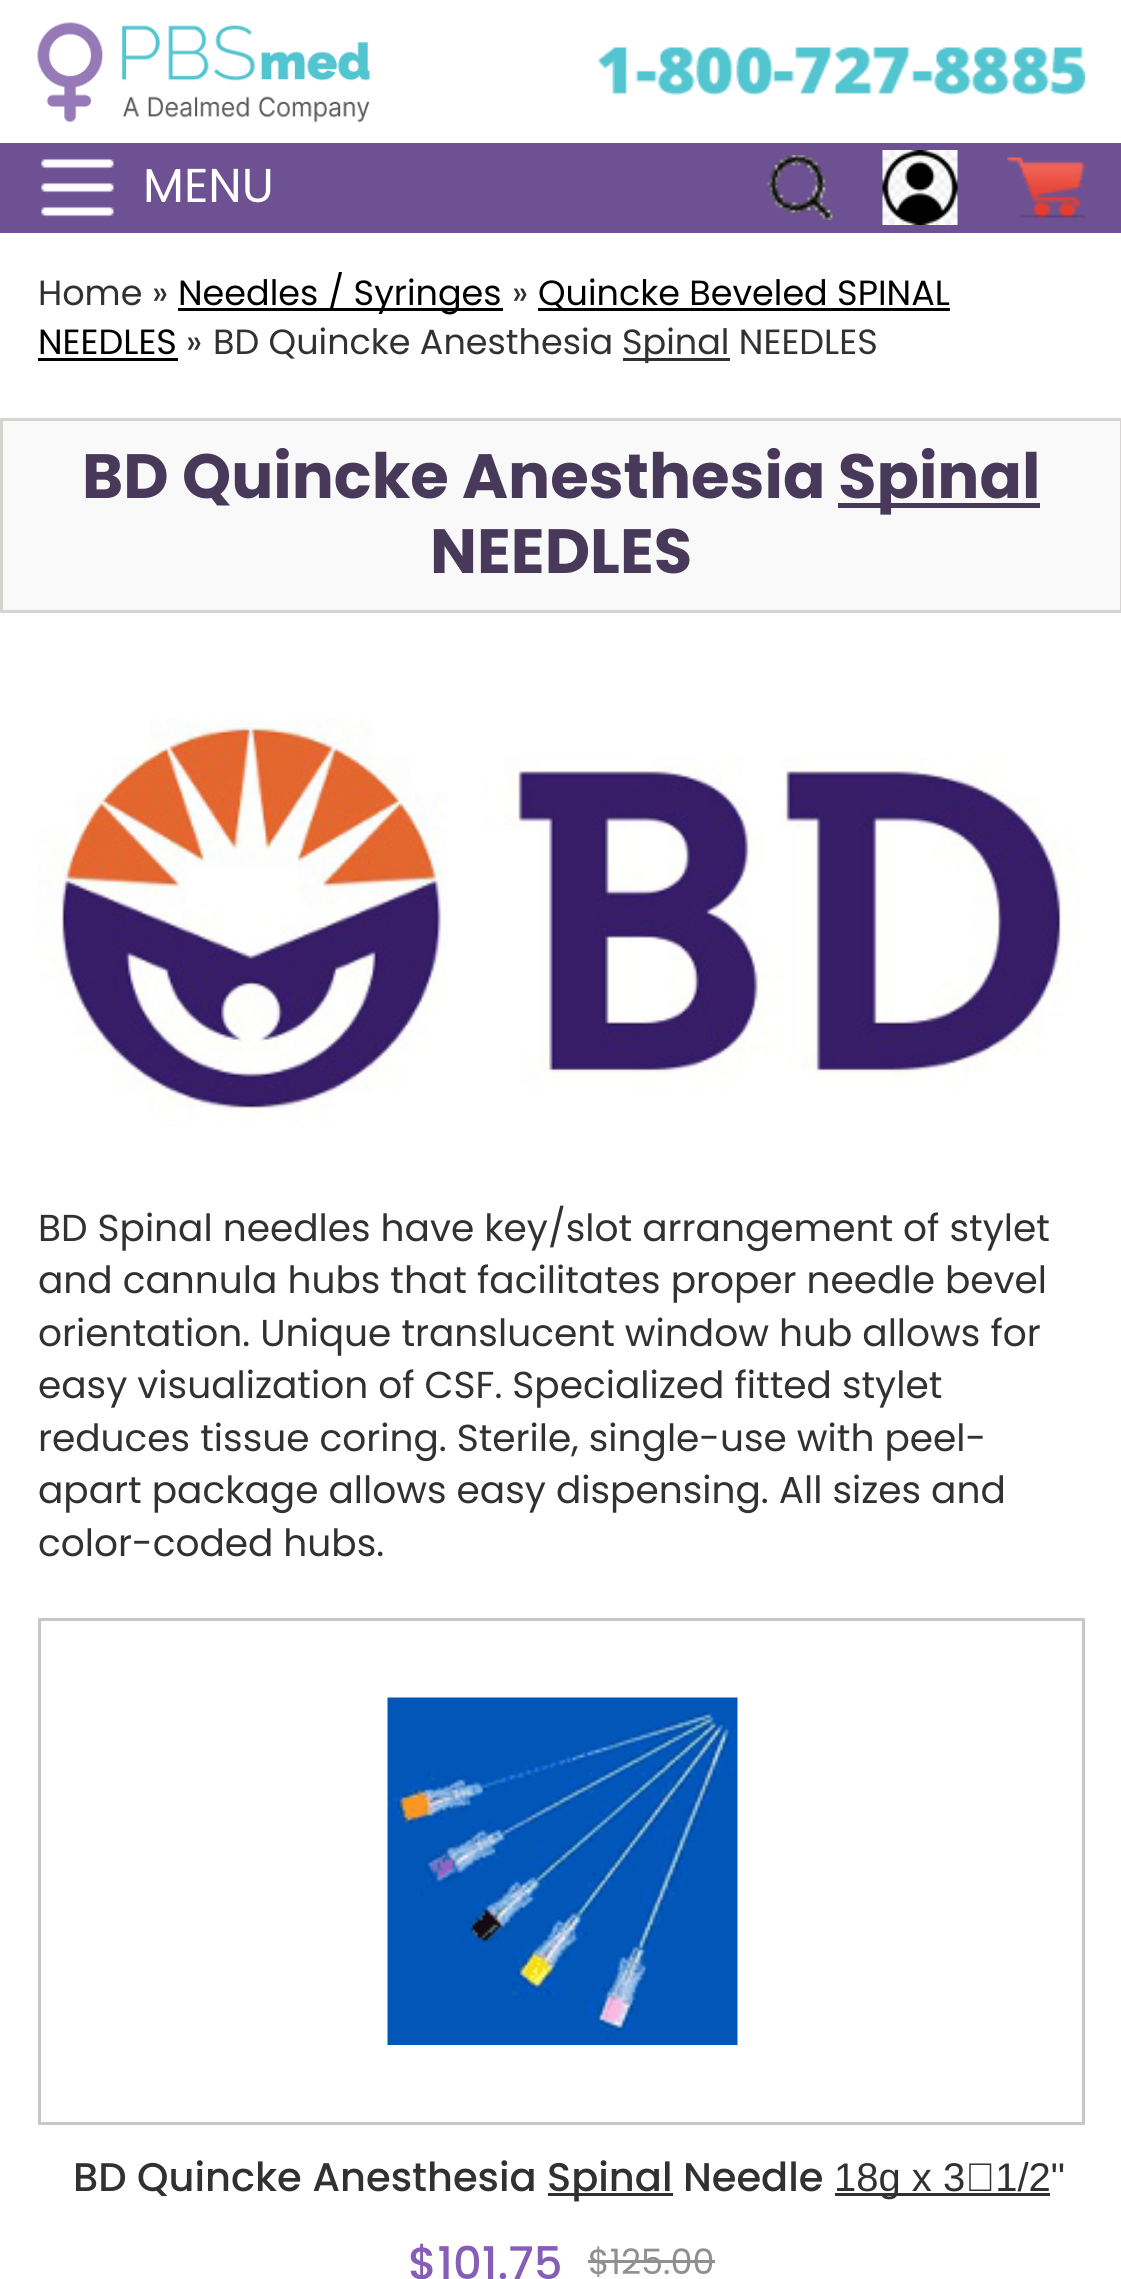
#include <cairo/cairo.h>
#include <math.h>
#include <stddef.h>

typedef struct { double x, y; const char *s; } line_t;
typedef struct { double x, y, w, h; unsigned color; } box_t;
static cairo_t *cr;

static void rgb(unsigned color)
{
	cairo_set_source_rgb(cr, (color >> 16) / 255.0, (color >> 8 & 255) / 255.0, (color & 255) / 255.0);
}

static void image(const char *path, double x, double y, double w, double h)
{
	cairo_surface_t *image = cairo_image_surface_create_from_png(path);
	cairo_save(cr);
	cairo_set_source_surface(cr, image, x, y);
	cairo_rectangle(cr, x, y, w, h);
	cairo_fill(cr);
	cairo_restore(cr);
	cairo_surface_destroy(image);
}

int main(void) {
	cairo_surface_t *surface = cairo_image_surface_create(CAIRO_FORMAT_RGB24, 1121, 2279);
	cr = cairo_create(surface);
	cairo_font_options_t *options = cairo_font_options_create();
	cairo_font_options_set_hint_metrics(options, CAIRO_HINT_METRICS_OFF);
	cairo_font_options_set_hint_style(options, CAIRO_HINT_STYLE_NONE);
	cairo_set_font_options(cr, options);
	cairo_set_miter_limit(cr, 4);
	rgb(0xffffff);
	cairo_paint(cr);
	rgb(0x6e5193);
	cairo_rectangle(cr, 0, 143, 1121, 90);
	cairo_fill(cr);
	image("img/1.png", 37, 22, 333, 101);
	image("img/2.png", 597, 47, 488, 48);
	image("img/3.png", 41, 157, 73, 61);
	image("img/4.png", 767, 155, 66, 65);
	image("img/5.png", 882, 150, 76, 75);
	image("img/6.png", 1007, 157, 78, 61);
	{
		static const box_t items[] = {
			{178, 308, 325, 3, 0x000000},
			{538, 308, 412, 3, 0x000000},
			{38, 358, 140, 3, 0x000000},
			{623, 358, 107, 3, 0x313131},
		};
		for (size_t i = 0; i < sizeof items / sizeof *items; i++) {
			rgb(items[i].color);
			cairo_rectangle(cr, items[i].x, items[i].y, items[i].w, items[i].h);
			cairo_fill(cr);
		}
	}
	rgb(0xf9f9f9);
	cairo_rectangle(cr, 1.5, 419.5, 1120, 192);
	cairo_fill_preserve(cr);
	rgb(0xd5d4d0);
	cairo_set_line_width(cr, 3);
	cairo_stroke(cr);
	rgb(0x48395a);
	cairo_rectangle(cr, 838, 503, 202, 5);
	cairo_fill(cr);
	image("img/7.png", 37, 718, 1043, 409);
	cairo_rectangle(cr, 39.5, 1619.5, 1044, 504);
	rgb(0xc7c7c7);
	cairo_stroke(cr);
	image("img/8.png", 387, 1697, 351, 348);
	{
		static const box_t items[] = {
			{548, 2193, 125, 3, 0x313131},
			{835, 2193, 215, 3, 0x313131},
			{588, 2260, 127, 3, 0x909090},
		};
		for (size_t i = 0; i < sizeof items / sizeof *items; i++) {
			rgb(items[i].color);
			cairo_rectangle(cr, items[i].x, items[i].y, items[i].w, items[i].h);
			cairo_fill(cr);
		}
	}
	cairo_select_font_face(cr, "Poppins", CAIRO_FONT_SLANT_NORMAL, CAIRO_FONT_WEIGHT_NORMAL);
	cairo_set_font_size(cr, 47.5);
	rgb(0xffffff);
	cairo_move_to(cr, 143, 202);
	cairo_show_text(cr, "MENU");
	cairo_set_font_size(cr, 35);
	rgb(0x313131);
	cairo_move_to(cr, 38, 305);
	cairo_show_text(cr, "Home");
	cairo_move_to(cr, 152, 305);
	cairo_show_text(cr, "»");
	rgb(0x000000);
	cairo_move_to(cr, 178, 305);
	cairo_show_text(cr, "Needles / Syringes");
	rgb(0x313131);
	cairo_move_to(cr, 512, 305);
	cairo_show_text(cr, "»");
	rgb(0x000000);
	cairo_move_to(cr, 538, 305);
	cairo_show_text(cr, "Quincke Beveled SPINAL");
	cairo_move_to(cr, 38, 354);
	cairo_show_text(cr, "NEEDLES");
	rgb(0x313131);
	{
		static const line_t items[] = {
			{186, 354, "»"},
			{213, 354, "BD Quincke Anesthesia"},
			{622, 354, "Spinal NEEDLES"},
		};
		for (size_t i = 0; i < sizeof items / sizeof *items; i++) {
			cairo_move_to(cr, items[i].x, items[i].y);
			cairo_show_text(cr, items[i].s);
		}
	}
	cairo_select_font_face(cr, "Poppins", CAIRO_FONT_SLANT_NORMAL, CAIRO_FONT_WEIGHT_BOLD);
	cairo_set_font_size(cr, 62.5);
	rgb(0x48395a);
	{
		static const line_t items[] = {
			{82, 498, "BD Quincke Anesthesia"},
			{838, 498, "Spinal"},
			{430, 573, "NEEDLES"},
		};
		for (size_t i = 0; i < sizeof items / sizeof *items; i++) {
			cairo_move_to(cr, items[i].x, items[i].y);
			cairo_show_text(cr, items[i].s);
		}
	}
	cairo_select_font_face(cr, "Poppins", CAIRO_FONT_SLANT_NORMAL, CAIRO_FONT_WEIGHT_NORMAL);
	cairo_set_font_size(cr, 37.5);
	rgb(0x313131);
	{
		static const line_t items[] = {
			{38, 1241, "BD Spinal needles have key/slot arrangement of stylet"},
			{38, 1293, "and cannula hubs that facilitates proper needle bevel"},
			{38, 1346, "orientation. Unique translucent window hub allows for"},
			{38, 1398, "easy visualization of CSF. Specialized fitted stylet"},
			{38, 1451, "reduces tissue coring. Sterile, single-use with peel-"},
			{38, 1503, "apart package allows easy dispensing. All sizes and"},
			{38, 1556, "color-coded hubs."},
		};
		for (size_t i = 0; i < sizeof items / sizeof *items; i++) {
			cairo_move_to(cr, items[i].x, items[i].y);
			cairo_show_text(cr, items[i].s);
		}
	}
	cairo_select_font_face(cr, "Poppins Medium", CAIRO_FONT_SLANT_NORMAL, CAIRO_FONT_WEIGHT_NORMAL);
	cairo_set_font_size(cr, 40);
	cairo_move_to(cr, 73, 2191);
	cairo_show_text(cr, "BD Quincke Anesthesia");
	cairo_move_to(cr, 547, 2191);
	cairo_show_text(cr, "Spinal Needle");
	cairo_select_font_face(cr, "Liberation Sans", CAIRO_FONT_SLANT_NORMAL, CAIRO_FONT_WEIGHT_NORMAL);
	cairo_move_to(cr, 834, 2191);
	cairo_show_text(cr, "18g x 3‑1/2\"");
	cairo_select_font_face(cr, "Poppins Medium", CAIRO_FONT_SLANT_NORMAL, CAIRO_FONT_WEIGHT_NORMAL);
	cairo_set_font_size(cr, 45);
	rgb(0x865eb7);
	cairo_move_to(cr, 408, 2279);
	cairo_show_text(cr, "$101.75");
	cairo_select_font_face(cr, "Poppins", CAIRO_FONT_SLANT_NORMAL, CAIRO_FONT_WEIGHT_NORMAL);
	cairo_set_font_size(cr, 35);
	rgb(0x909090);
	cairo_move_to(cr, 588, 2274);
	cairo_show_text(cr, "$125.00");
	cairo_surface_write_to_png(surface, "page.png");
	cairo_font_options_destroy(options);
	cairo_destroy(cr);
	cairo_surface_destroy(surface);
	return 0;
}
